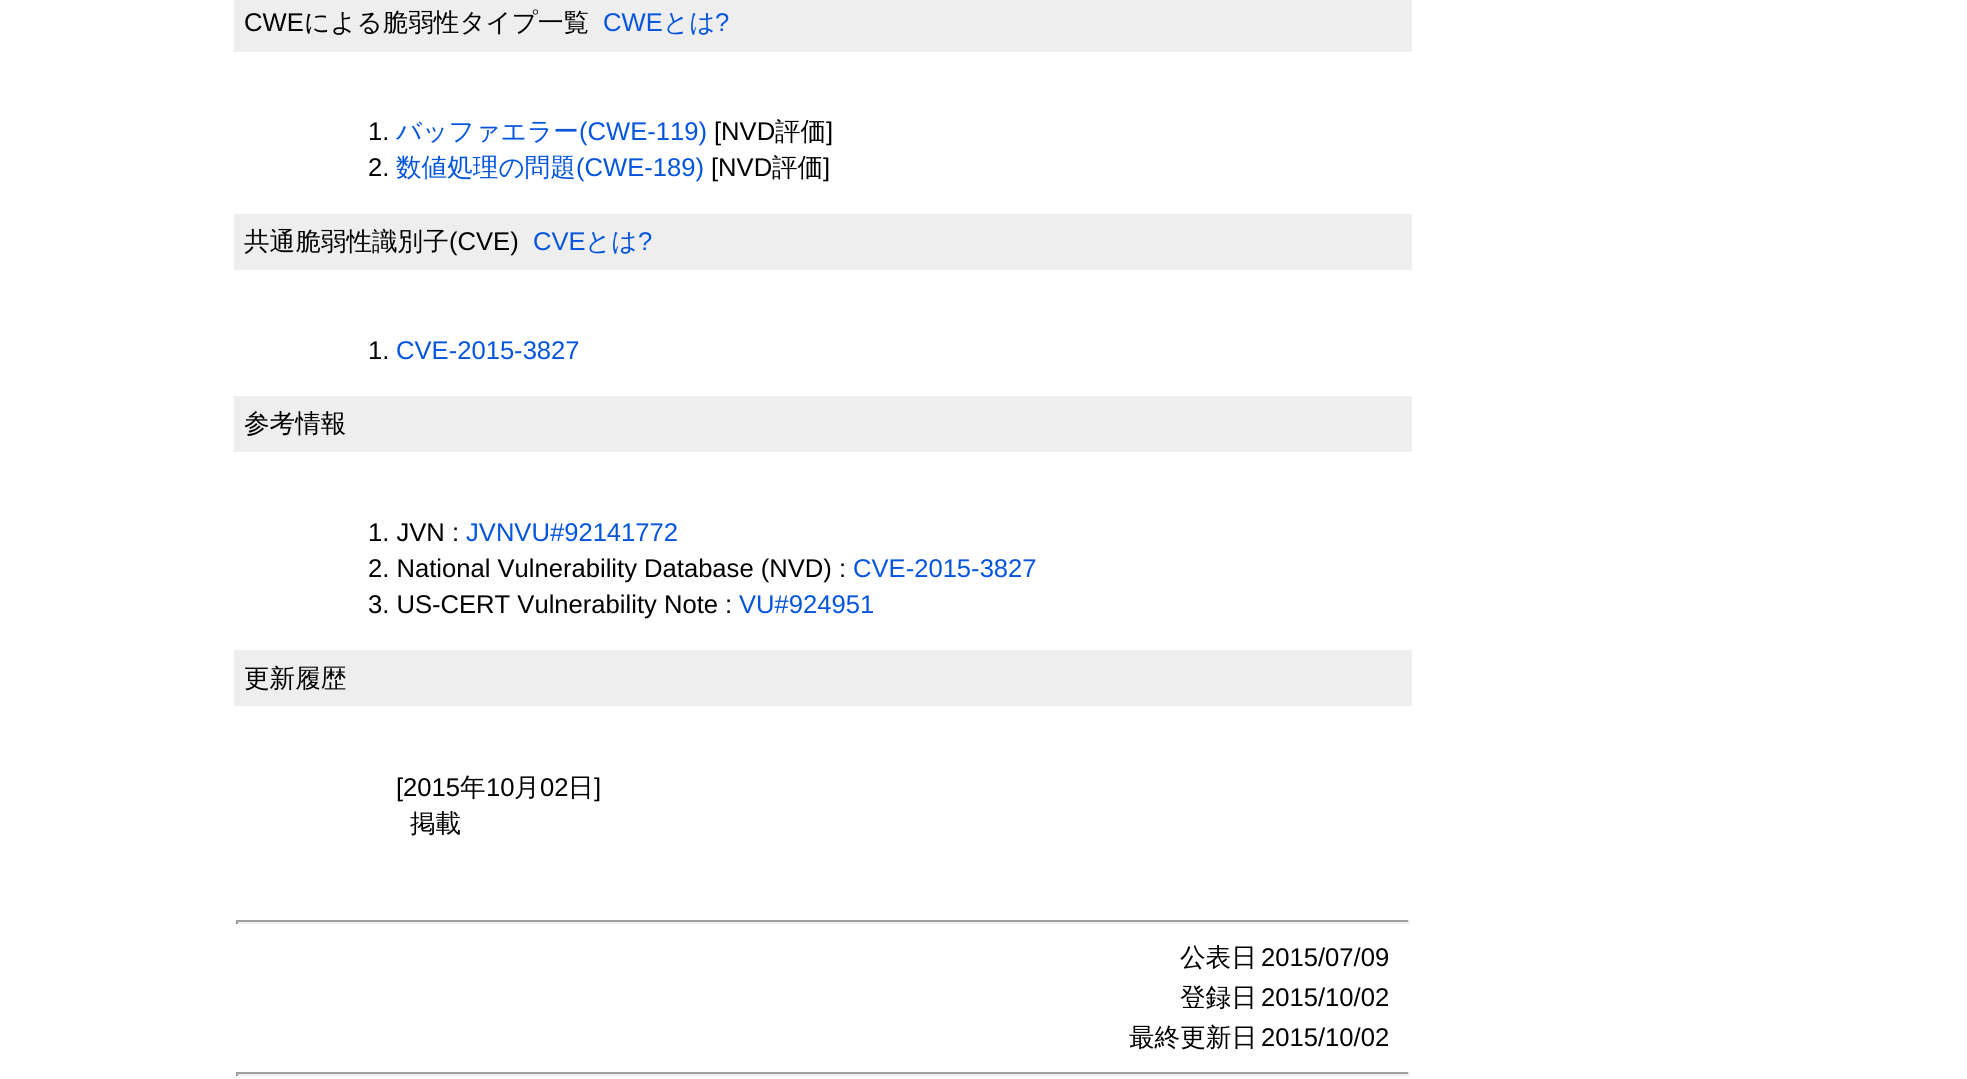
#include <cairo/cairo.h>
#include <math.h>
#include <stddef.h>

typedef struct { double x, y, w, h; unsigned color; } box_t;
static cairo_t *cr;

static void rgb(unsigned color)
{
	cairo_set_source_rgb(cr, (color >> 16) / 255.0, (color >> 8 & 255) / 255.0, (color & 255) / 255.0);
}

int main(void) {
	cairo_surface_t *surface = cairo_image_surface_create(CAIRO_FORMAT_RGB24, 1967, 1079);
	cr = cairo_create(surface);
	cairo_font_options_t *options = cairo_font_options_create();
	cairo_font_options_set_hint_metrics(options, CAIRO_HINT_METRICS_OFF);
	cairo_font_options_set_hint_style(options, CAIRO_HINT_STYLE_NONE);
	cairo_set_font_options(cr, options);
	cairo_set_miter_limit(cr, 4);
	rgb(0xffffff);
	cairo_paint(cr);
	{
		static const box_t items[] = {
			{234, 0, 1178, 52, 0xeeeeee},
			{234, 214, 1178, 56, 0xeeeeee},
			{234, 396, 1178, 56, 0xeeeeee},
			{234, 650, 1178, 56, 0xeeeeee},
			{236, 920, 1174, 2, 0x9f9f9f},
			{1408, 920, 2, 4, 0xeeeeee},
			{236, 922, 1174, 2, 0xeeeeee},
			{236, 920, 2, 4, 0x9f9f9f},
			{236, 1072, 1174, 2, 0x9f9f9f},
			{1408, 1072, 2, 4, 0xeeeeee},
			{236, 1074, 1174, 2, 0xeeeeee},
			{236, 1072, 2, 4, 0x9f9f9f},
		};
		for (size_t i = 0; i < sizeof items / sizeof *items; i++) {
			rgb(items[i].color);
			cairo_rectangle(cr, items[i].x, items[i].y, items[i].w, items[i].h);
			cairo_fill(cr);
		}
	}
	cairo_select_font_face(cr, "Liberation Sans", CAIRO_FONT_SLANT_NORMAL, CAIRO_FONT_WEIGHT_NORMAL);
	cairo_set_font_size(cr, 25.6);
	rgb(0x000000);
	cairo_move_to(cr, 244, 31);
	cairo_show_text(cr, "CWE");
	cairo_select_font_face(cr, "WenQuanYi Zen Hei Medium", CAIRO_FONT_SLANT_NORMAL, CAIRO_FONT_WEIGHT_NORMAL);
	cairo_move_to(cr, 304, 31);
	cairo_show_text(cr, "による脆弱性タイプ一覧");
	cairo_select_font_face(cr, "Liberation Sans", CAIRO_FONT_SLANT_NORMAL, CAIRO_FONT_WEIGHT_NORMAL);
	rgb(0x0455dc);
	cairo_move_to(cr, 603, 31);
	cairo_show_text(cr, "CWE");
	cairo_select_font_face(cr, "WenQuanYi Zen Hei Medium", CAIRO_FONT_SLANT_NORMAL, CAIRO_FONT_WEIGHT_NORMAL);
	cairo_move_to(cr, 663, 31);
	cairo_show_text(cr, "とは");
	cairo_select_font_face(cr, "Liberation Sans", CAIRO_FONT_SLANT_NORMAL, CAIRO_FONT_WEIGHT_NORMAL);
	cairo_move_to(cr, 715, 31);
	cairo_show_text(cr, "?");
	rgb(0x000000);
	cairo_move_to(cr, 368, 140);
	cairo_show_text(cr, "1.");
	cairo_select_font_face(cr, "WenQuanYi Zen Hei Medium", CAIRO_FONT_SLANT_NORMAL, CAIRO_FONT_WEIGHT_NORMAL);
	rgb(0x0455dc);
	cairo_move_to(cr, 396, 140);
	cairo_show_text(cr, "バッファエラー");
	cairo_select_font_face(cr, "Liberation Sans", CAIRO_FONT_SLANT_NORMAL, CAIRO_FONT_WEIGHT_NORMAL);
	cairo_move_to(cr, 579, 140);
	cairo_show_text(cr, "(CWE-119)");
	rgb(0x000000);
	cairo_move_to(cr, 714, 140);
	cairo_show_text(cr, "[NVD");
	cairo_select_font_face(cr, "WenQuanYi Zen Hei Medium", CAIRO_FONT_SLANT_NORMAL, CAIRO_FONT_WEIGHT_NORMAL);
	cairo_move_to(cr, 775, 140);
	cairo_show_text(cr, "評価");
	cairo_select_font_face(cr, "Liberation Sans", CAIRO_FONT_SLANT_NORMAL, CAIRO_FONT_WEIGHT_NORMAL);
	cairo_move_to(cr, 826, 140);
	cairo_show_text(cr, "]");
	cairo_move_to(cr, 368, 176);
	cairo_show_text(cr, "2.");
	cairo_select_font_face(cr, "WenQuanYi Zen Hei Medium", CAIRO_FONT_SLANT_NORMAL, CAIRO_FONT_WEIGHT_NORMAL);
	rgb(0x0455dc);
	cairo_move_to(cr, 396, 176);
	cairo_show_text(cr, "数値処理の問題");
	cairo_select_font_face(cr, "Liberation Sans", CAIRO_FONT_SLANT_NORMAL, CAIRO_FONT_WEIGHT_NORMAL);
	cairo_move_to(cr, 576, 176);
	cairo_show_text(cr, "(CWE-189)");
	rgb(0x000000);
	cairo_move_to(cr, 711, 176);
	cairo_show_text(cr, "[NVD");
	cairo_select_font_face(cr, "WenQuanYi Zen Hei Medium", CAIRO_FONT_SLANT_NORMAL, CAIRO_FONT_WEIGHT_NORMAL);
	cairo_move_to(cr, 772, 176);
	cairo_show_text(cr, "評価");
	cairo_select_font_face(cr, "Liberation Sans", CAIRO_FONT_SLANT_NORMAL, CAIRO_FONT_WEIGHT_NORMAL);
	cairo_move_to(cr, 823, 176);
	cairo_show_text(cr, "]");
	cairo_select_font_face(cr, "WenQuanYi Zen Hei Medium", CAIRO_FONT_SLANT_NORMAL, CAIRO_FONT_WEIGHT_NORMAL);
	cairo_move_to(cr, 244, 250);
	cairo_show_text(cr, "共通脆弱性識別子");
	cairo_select_font_face(cr, "Liberation Sans", CAIRO_FONT_SLANT_NORMAL, CAIRO_FONT_WEIGHT_NORMAL);
	cairo_move_to(cr, 449, 250);
	cairo_show_text(cr, "(CVE)");
	rgb(0x0455dc);
	cairo_move_to(cr, 533, 250);
	cairo_show_text(cr, "CVE");
	cairo_select_font_face(cr, "WenQuanYi Zen Hei Medium", CAIRO_FONT_SLANT_NORMAL, CAIRO_FONT_WEIGHT_NORMAL);
	cairo_move_to(cr, 585, 250);
	cairo_show_text(cr, "とは");
	cairo_select_font_face(cr, "Liberation Sans", CAIRO_FONT_SLANT_NORMAL, CAIRO_FONT_WEIGHT_NORMAL);
	cairo_move_to(cr, 638, 250);
	cairo_show_text(cr, "?");
	rgb(0x000000);
	cairo_move_to(cr, 368, 359);
	cairo_show_text(cr, "1.");
	rgb(0x0455dc);
	cairo_move_to(cr, 396, 359);
	cairo_show_text(cr, "CVE-2015-3827");
	cairo_select_font_face(cr, "WenQuanYi Zen Hei Medium", CAIRO_FONT_SLANT_NORMAL, CAIRO_FONT_WEIGHT_NORMAL);
	rgb(0x000000);
	cairo_move_to(cr, 244, 432);
	cairo_show_text(cr, "参考情報");
	cairo_select_font_face(cr, "Liberation Sans", CAIRO_FONT_SLANT_NORMAL, CAIRO_FONT_WEIGHT_NORMAL);
	cairo_move_to(cr, 368, 541);
	cairo_show_text(cr, "1. JVN :");
	rgb(0x0455dc);
	cairo_move_to(cr, 466, 541);
	cairo_show_text(cr, "JVNVU#92141772");
	rgb(0x000000);
	cairo_move_to(cr, 368, 577);
	cairo_show_text(cr, "2. National Vulnerability Database (NVD) :");
	rgb(0x0455dc);
	cairo_move_to(cr, 853, 577);
	cairo_show_text(cr, "CVE-2015-3827");
	rgb(0x000000);
	cairo_move_to(cr, 368, 613);
	cairo_show_text(cr, "3. US-CERT Vulnerability Note :");
	rgb(0x0455dc);
	cairo_move_to(cr, 739, 613);
	cairo_show_text(cr, "VU#924951");
	cairo_select_font_face(cr, "WenQuanYi Zen Hei Medium", CAIRO_FONT_SLANT_NORMAL, CAIRO_FONT_WEIGHT_NORMAL);
	rgb(0x000000);
	cairo_move_to(cr, 244, 687);
	cairo_show_text(cr, "更新履歴");
	cairo_select_font_face(cr, "Liberation Sans", CAIRO_FONT_SLANT_NORMAL, CAIRO_FONT_WEIGHT_NORMAL);
	cairo_move_to(cr, 396, 796);
	cairo_show_text(cr, "[2015");
	cairo_select_font_face(cr, "WenQuanYi Zen Hei Medium", CAIRO_FONT_SLANT_NORMAL, CAIRO_FONT_WEIGHT_NORMAL);
	cairo_move_to(cr, 460, 796);
	cairo_show_text(cr, "年");
	cairo_select_font_face(cr, "Liberation Sans", CAIRO_FONT_SLANT_NORMAL, CAIRO_FONT_WEIGHT_NORMAL);
	cairo_move_to(cr, 486, 796);
	cairo_show_text(cr, "10");
	cairo_select_font_face(cr, "WenQuanYi Zen Hei Medium", CAIRO_FONT_SLANT_NORMAL, CAIRO_FONT_WEIGHT_NORMAL);
	cairo_move_to(cr, 514, 796);
	cairo_show_text(cr, "月");
	cairo_select_font_face(cr, "Liberation Sans", CAIRO_FONT_SLANT_NORMAL, CAIRO_FONT_WEIGHT_NORMAL);
	cairo_move_to(cr, 540, 796);
	cairo_show_text(cr, "02");
	cairo_select_font_face(cr, "WenQuanYi Zen Hei Medium", CAIRO_FONT_SLANT_NORMAL, CAIRO_FONT_WEIGHT_NORMAL);
	cairo_move_to(cr, 568, 796);
	cairo_show_text(cr, "日");
	cairo_select_font_face(cr, "Liberation Sans", CAIRO_FONT_SLANT_NORMAL, CAIRO_FONT_WEIGHT_NORMAL);
	cairo_move_to(cr, 594, 796);
	cairo_show_text(cr, "]");
	cairo_select_font_face(cr, "WenQuanYi Zen Hei Medium", CAIRO_FONT_SLANT_NORMAL, CAIRO_FONT_WEIGHT_NORMAL);
	cairo_move_to(cr, 410, 832);
	cairo_show_text(cr, "掲載");
	cairo_move_to(cr, 1180, 966);
	cairo_show_text(cr, "公表日");
	cairo_select_font_face(cr, "Liberation Sans", CAIRO_FONT_SLANT_NORMAL, CAIRO_FONT_WEIGHT_NORMAL);
	cairo_move_to(cr, 1261, 966);
	cairo_show_text(cr, "2015/07/09");
	cairo_select_font_face(cr, "WenQuanYi Zen Hei Medium", CAIRO_FONT_SLANT_NORMAL, CAIRO_FONT_WEIGHT_NORMAL);
	cairo_move_to(cr, 1180, 1006);
	cairo_show_text(cr, "登録日");
	cairo_select_font_face(cr, "Liberation Sans", CAIRO_FONT_SLANT_NORMAL, CAIRO_FONT_WEIGHT_NORMAL);
	cairo_move_to(cr, 1261, 1006);
	cairo_show_text(cr, "2015/10/02");
	cairo_select_font_face(cr, "WenQuanYi Zen Hei Medium", CAIRO_FONT_SLANT_NORMAL, CAIRO_FONT_WEIGHT_NORMAL);
	cairo_move_to(cr, 1129, 1046);
	cairo_show_text(cr, "最終更新日");
	cairo_select_font_face(cr, "Liberation Sans", CAIRO_FONT_SLANT_NORMAL, CAIRO_FONT_WEIGHT_NORMAL);
	cairo_move_to(cr, 1261, 1046);
	cairo_show_text(cr, "2015/10/02");
	cairo_surface_write_to_png(surface, "page.png");
	cairo_font_options_destroy(options);
	cairo_destroy(cr);
	cairo_surface_destroy(surface);
	return 0;
}
